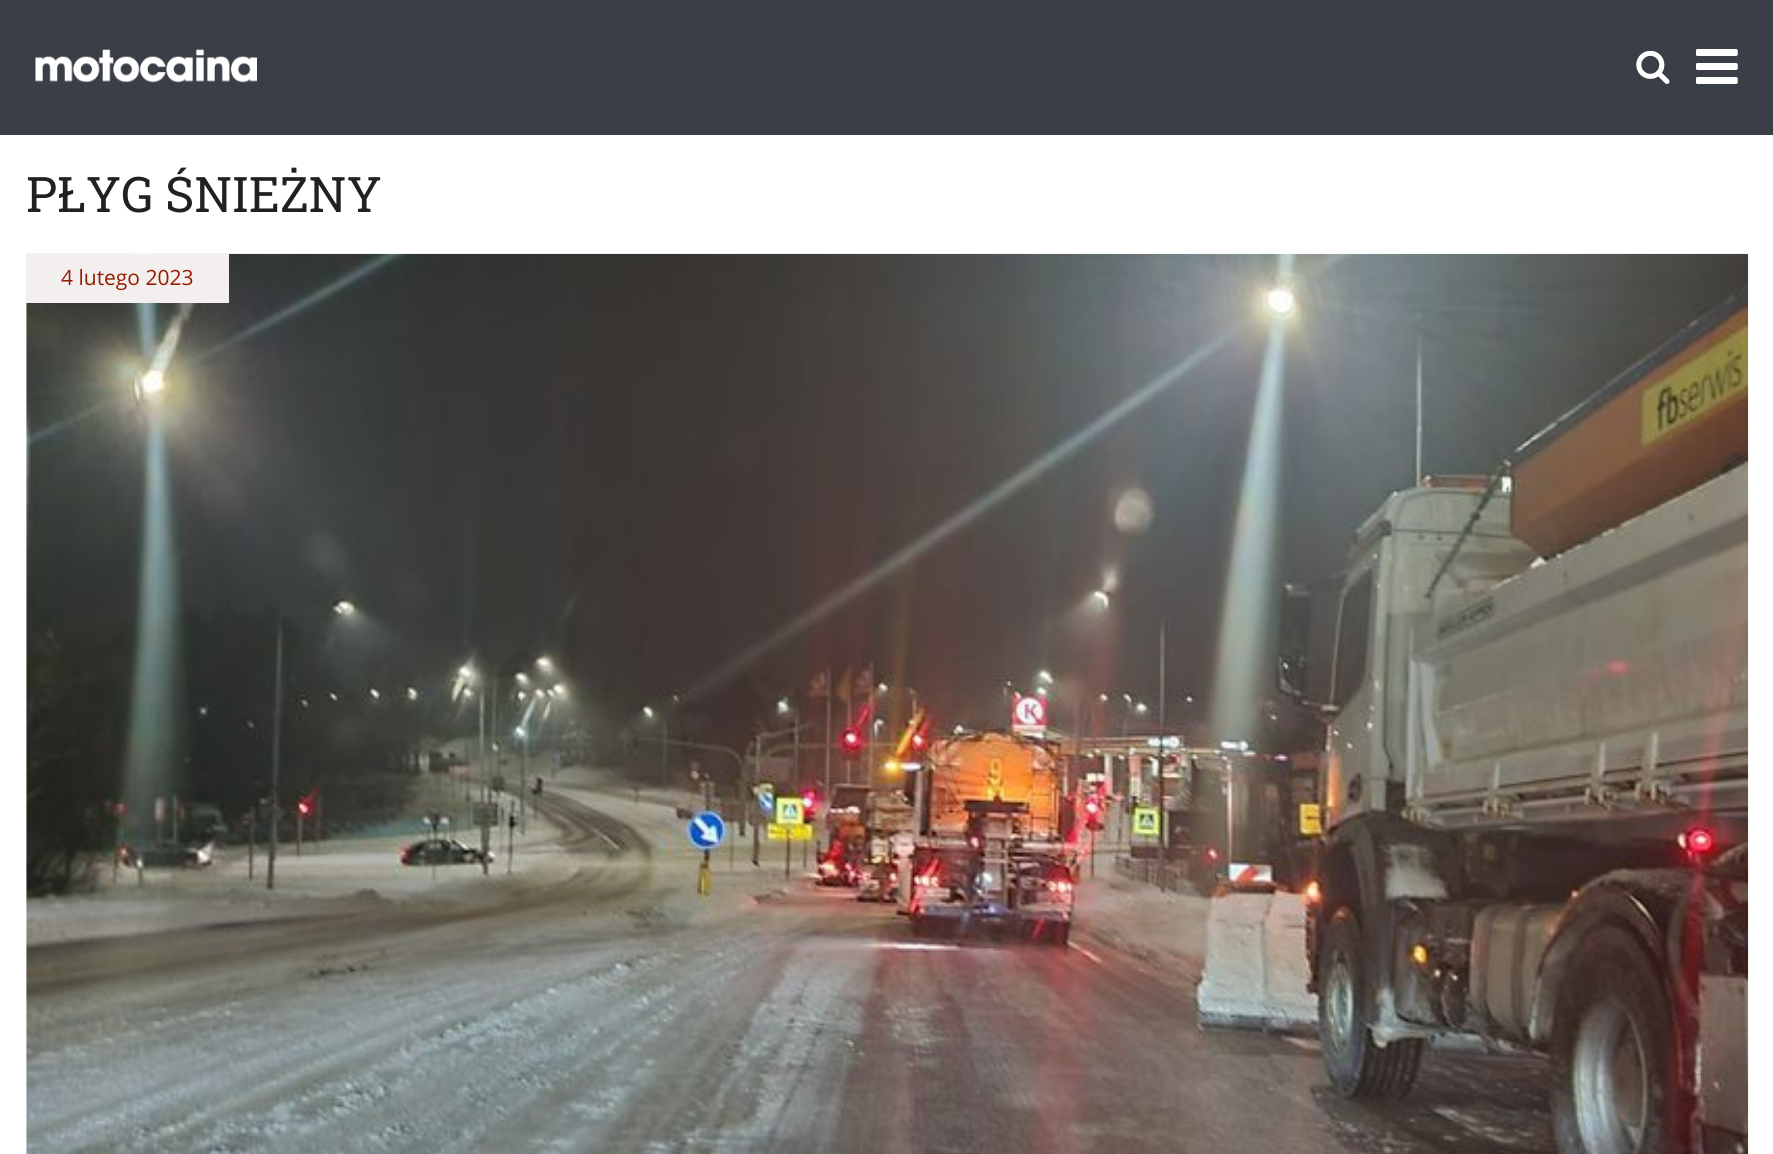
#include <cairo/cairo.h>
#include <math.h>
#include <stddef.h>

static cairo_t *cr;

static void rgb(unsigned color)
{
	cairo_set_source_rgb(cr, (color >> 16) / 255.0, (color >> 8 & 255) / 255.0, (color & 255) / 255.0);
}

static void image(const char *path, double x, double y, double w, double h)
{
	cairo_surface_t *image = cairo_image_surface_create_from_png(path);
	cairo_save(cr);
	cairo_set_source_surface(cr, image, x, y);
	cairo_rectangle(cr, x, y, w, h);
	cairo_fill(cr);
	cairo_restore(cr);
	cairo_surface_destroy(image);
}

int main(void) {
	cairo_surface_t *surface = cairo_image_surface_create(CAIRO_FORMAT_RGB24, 1773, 1154);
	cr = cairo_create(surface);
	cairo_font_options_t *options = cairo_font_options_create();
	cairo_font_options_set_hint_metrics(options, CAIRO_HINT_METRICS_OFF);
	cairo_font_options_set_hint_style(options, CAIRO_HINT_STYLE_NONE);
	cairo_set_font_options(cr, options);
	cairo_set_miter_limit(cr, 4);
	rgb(0xffffff);
	cairo_paint(cr);
	rgb(0x3a3f47);
	cairo_rectangle(cr, 0, 0, 1773, 135);
	cairo_fill(cr);
	image("img/1.png", 35, 49, 222, 34);
	image("img/2.png", 1636, 51, 34, 33);
	image("img/3.png", 1696, 49, 42, 35);
	image("img/4.png", 26, 253, 1723, 901);
	rgb(0xf4efef);
	cairo_rectangle(cr, 26, 254, 203, 49);
	cairo_fill(cr);
	cairo_select_font_face(cr, "Roboto Slab", CAIRO_FONT_SLANT_NORMAL, CAIRO_FONT_WEIGHT_NORMAL);
	cairo_set_font_size(cr, 49);
	rgb(0x212121);
	cairo_move_to(cr, 26, 212);
	cairo_show_text(cr, "PŁYG ŚNIEŻNY");
	cairo_select_font_face(cr, "Open Sans", CAIRO_FONT_SLANT_NORMAL, CAIRO_FONT_WEIGHT_NORMAL);
	cairo_set_font_size(cr, 21);
	rgb(0x941c00);
	cairo_move_to(cr, 61, 285);
	cairo_show_text(cr, "4 lutego 2023");
	cairo_surface_write_to_png(surface, "page.png");
	cairo_font_options_destroy(options);
	cairo_destroy(cr);
	cairo_surface_destroy(surface);
	return 0;
}
